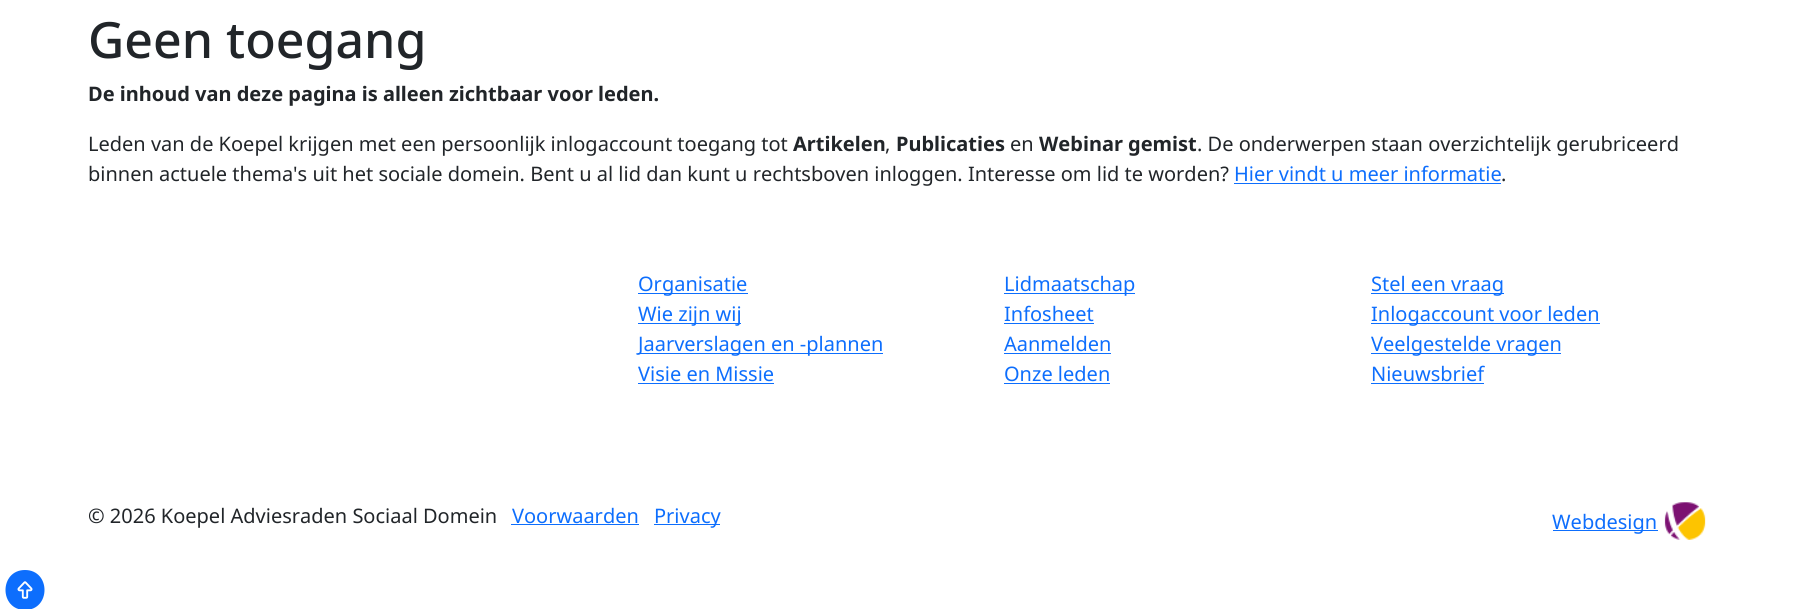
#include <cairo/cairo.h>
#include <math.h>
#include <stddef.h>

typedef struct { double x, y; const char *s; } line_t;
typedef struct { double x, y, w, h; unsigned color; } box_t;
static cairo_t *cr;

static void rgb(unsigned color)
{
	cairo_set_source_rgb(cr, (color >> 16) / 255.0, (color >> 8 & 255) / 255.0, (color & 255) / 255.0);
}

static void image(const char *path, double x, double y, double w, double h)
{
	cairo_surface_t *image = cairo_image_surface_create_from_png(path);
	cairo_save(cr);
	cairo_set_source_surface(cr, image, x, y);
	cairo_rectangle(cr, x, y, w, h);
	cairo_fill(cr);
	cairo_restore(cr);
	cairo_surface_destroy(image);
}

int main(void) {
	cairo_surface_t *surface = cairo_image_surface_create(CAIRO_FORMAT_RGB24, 1794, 609);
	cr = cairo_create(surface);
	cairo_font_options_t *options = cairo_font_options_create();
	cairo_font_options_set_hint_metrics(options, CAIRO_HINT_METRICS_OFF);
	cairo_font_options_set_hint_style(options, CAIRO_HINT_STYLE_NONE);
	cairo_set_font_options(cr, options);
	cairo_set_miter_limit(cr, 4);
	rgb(0xffffff);
	cairo_paint(cr);
	{
		static const box_t items[] = {
			{1234, 183, 267, 1, 0x0d6efd},
			{638, 293, 110, 1, 0x0d6efd},
			{638, 323, 103, 1, 0x0d6efd},
			{638, 353, 245, 1, 0x0d6efd},
			{638, 383, 136, 1, 0x0d6efd},
			{1004, 293, 131, 1, 0x0d6efd},
			{1004, 323, 90, 1, 0x0d6efd},
			{1004, 353, 107, 1, 0x0d6efd},
			{1004, 383, 106, 1, 0x0d6efd},
			{1371, 293, 133, 1, 0x0d6efd},
			{1371, 323, 229, 1, 0x0d6efd},
			{1371, 353, 190, 1, 0x0d6efd},
			{1371, 383, 113, 1, 0x0d6efd},
			{511, 524, 128, 1, 0x0d6efd},
			{654, 524, 66, 1, 0x0d6efd},
			{1553, 530, 105, 1, 0x0d6efd},
		};
		for (size_t i = 0; i < sizeof items / sizeof *items; i++) {
			rgb(items[i].color);
			cairo_rectangle(cr, items[i].x, items[i].y, items[i].w, items[i].h);
			cairo_fill(cr);
		}
	}
	image("img/1.png", 1664, 502, 42, 38);
	cairo_new_path(cr);
	cairo_move_to(cr, 25, 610);
	cairo_curve_to(cr, 51, 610, 51, 570, 25, 570);
	cairo_curve_to(cr, -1, 570, -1, 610, 25, 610);
	cairo_close_path(cr);
	cairo_fill(cr);
	image("img/2.png", 17, 581, 16, 18);
	cairo_select_font_face(cr, "Noto Sans Medium", CAIRO_FONT_SLANT_NORMAL, CAIRO_FONT_WEIGHT_NORMAL);
	cairo_set_font_size(cr, 50);
	rgb(0x212529);
	cairo_move_to(cr, 88, 58);
	cairo_show_text(cr, "Geen toegang");
	cairo_select_font_face(cr, "Noto Sans", CAIRO_FONT_SLANT_NORMAL, CAIRO_FONT_WEIGHT_BOLD);
	cairo_set_font_size(cr, 20);
	cairo_move_to(cr, 88, 101);
	cairo_show_text(cr, "De inhoud van deze pagina is alleen zichtbaar voor leden.");
	cairo_select_font_face(cr, "Noto Sans", CAIRO_FONT_SLANT_NORMAL, CAIRO_FONT_WEIGHT_NORMAL);
	cairo_move_to(cr, 88, 151);
	cairo_show_text(cr, "Leden van de Koepel krijgen met een persoonlijk inlogaccount toegang tot");
	cairo_select_font_face(cr, "Noto Sans", CAIRO_FONT_SLANT_NORMAL, CAIRO_FONT_WEIGHT_BOLD);
	cairo_move_to(cr, 793, 151);
	cairo_show_text(cr, "Artikelen");
	cairo_select_font_face(cr, "Noto Sans", CAIRO_FONT_SLANT_NORMAL, CAIRO_FONT_WEIGHT_NORMAL);
	cairo_move_to(cr, 885, 151);
	cairo_show_text(cr, ",");
	cairo_select_font_face(cr, "Noto Sans", CAIRO_FONT_SLANT_NORMAL, CAIRO_FONT_WEIGHT_BOLD);
	cairo_move_to(cr, 896, 151);
	cairo_show_text(cr, "Publicaties");
	cairo_select_font_face(cr, "Noto Sans", CAIRO_FONT_SLANT_NORMAL, CAIRO_FONT_WEIGHT_NORMAL);
	cairo_move_to(cr, 1010, 151);
	cairo_show_text(cr, "en");
	cairo_select_font_face(cr, "Noto Sans", CAIRO_FONT_SLANT_NORMAL, CAIRO_FONT_WEIGHT_BOLD);
	cairo_move_to(cr, 1039, 151);
	cairo_show_text(cr, "Webinar gemist");
	cairo_select_font_face(cr, "Noto Sans", CAIRO_FONT_SLANT_NORMAL, CAIRO_FONT_WEIGHT_NORMAL);
	cairo_move_to(cr, 1197, 151);
	cairo_show_text(cr, ". De onderwerpen staan overzichtelijk gerubriceerd");
	cairo_move_to(cr, 88, 181);
	cairo_show_text(cr, "binnen actuele thema's uit het sociale domein. Bent u al lid dan kunt u rechtsboven inloggen. Interesse om lid te worden?");
	rgb(0x0d6efd);
	cairo_move_to(cr, 1234, 181);
	cairo_show_text(cr, "Hier vindt u meer informatie");
	rgb(0x212529);
	cairo_move_to(cr, 1501, 181);
	cairo_show_text(cr, ".");
	rgb(0x0d6efd);
	{
		static const line_t items[] = {
			{638, 291, "Organisatie"},
			{638, 321, "Wie zijn wij"},
			{638, 351, "Jaarverslagen en -plannen"},
			{638, 381, "Visie en Missie"},
			{1004, 291, "Lidmaatschap"},
			{1004, 321, "Infosheet"},
			{1004, 351, "Aanmelden"},
			{1004, 381, "Onze leden"},
			{1371, 291, "Stel een vraag"},
			{1371, 321, "Inlogaccount voor leden"},
			{1371, 351, "Veelgestelde vragen"},
			{1371, 381, "Nieuwsbrief"},
		};
		for (size_t i = 0; i < sizeof items / sizeof *items; i++) {
			cairo_move_to(cr, items[i].x, items[i].y);
			cairo_show_text(cr, items[i].s);
		}
	}
	rgb(0x212529);
	cairo_move_to(cr, 88, 523);
	cairo_show_text(cr, "© 2026 Koepel Adviesraden Sociaal Domein");
	rgb(0x0d6efd);
	{
		static const line_t items[] = {
			{512, 523, "Voorwaarden"},
			{654, 523, "Privacy"},
			{1552, 529, "Webdesign"},
		};
		for (size_t i = 0; i < sizeof items / sizeof *items; i++) {
			cairo_move_to(cr, items[i].x, items[i].y);
			cairo_show_text(cr, items[i].s);
		}
	}
	cairo_surface_write_to_png(surface, "page.png");
	cairo_font_options_destroy(options);
	cairo_destroy(cr);
	cairo_surface_destroy(surface);
	return 0;
}
